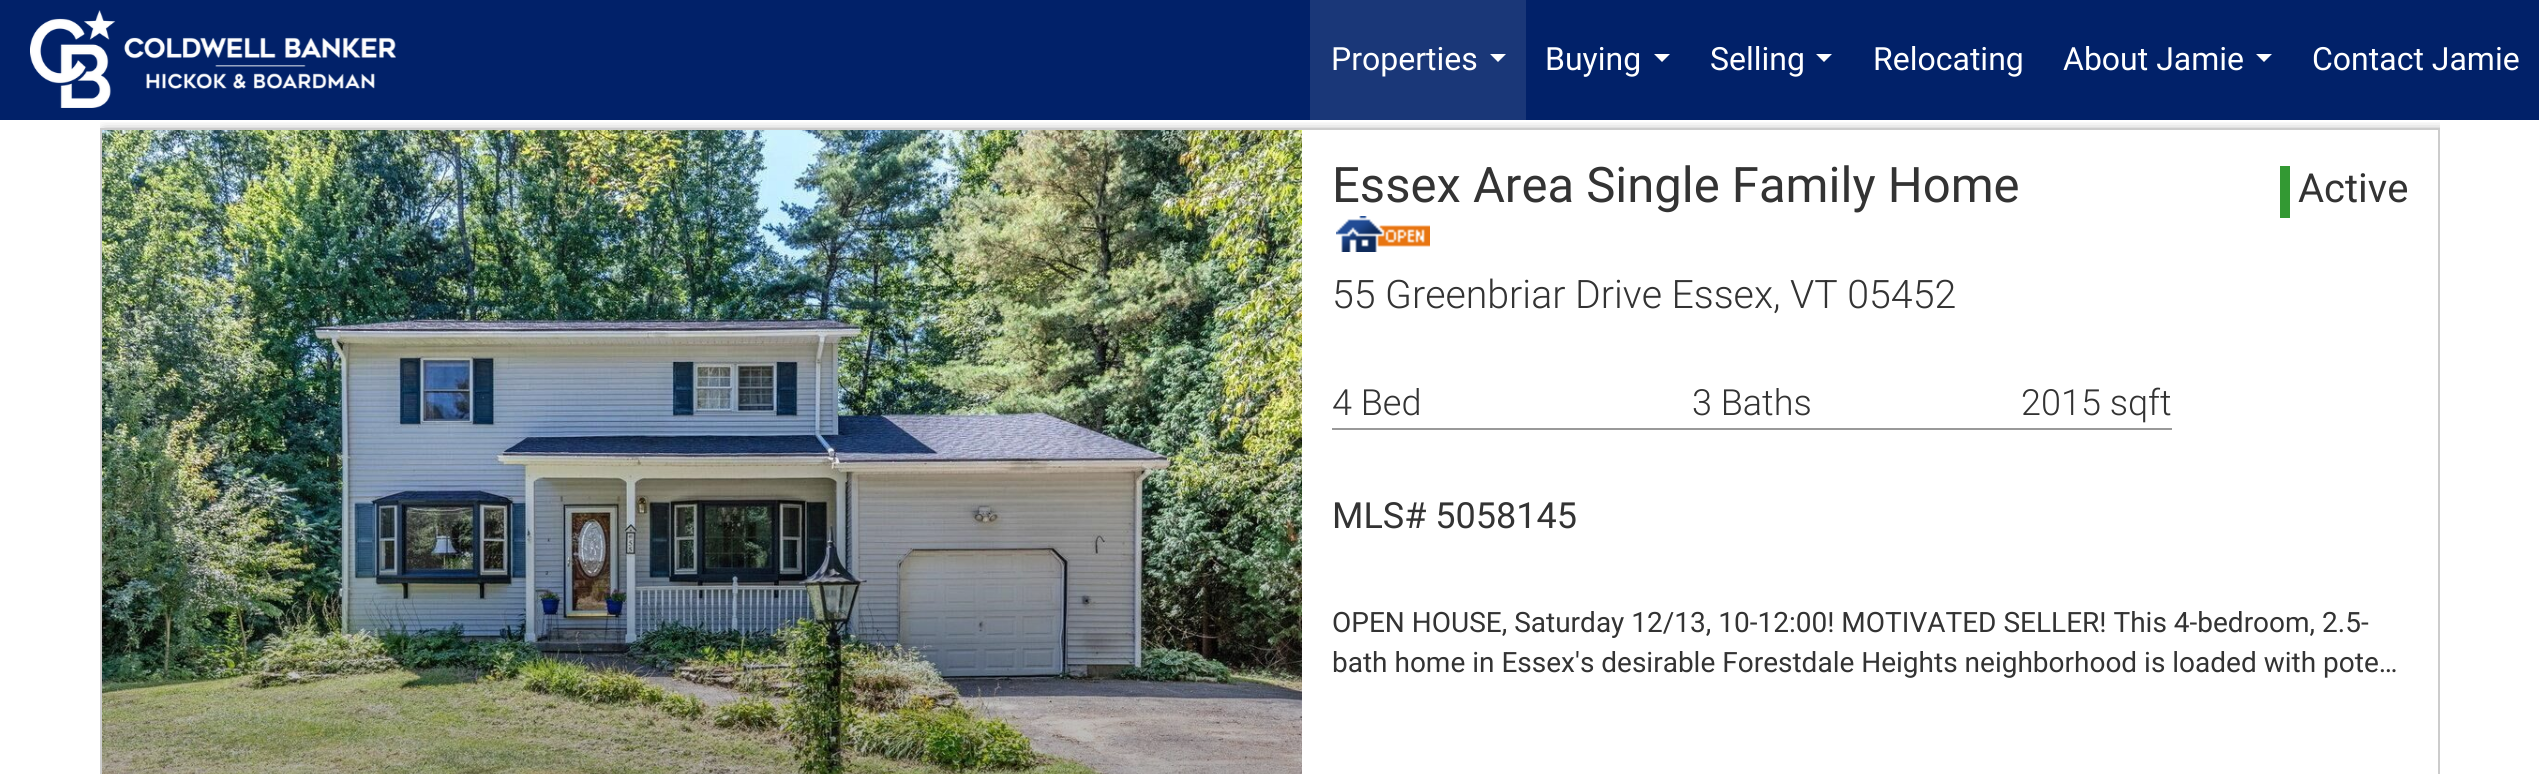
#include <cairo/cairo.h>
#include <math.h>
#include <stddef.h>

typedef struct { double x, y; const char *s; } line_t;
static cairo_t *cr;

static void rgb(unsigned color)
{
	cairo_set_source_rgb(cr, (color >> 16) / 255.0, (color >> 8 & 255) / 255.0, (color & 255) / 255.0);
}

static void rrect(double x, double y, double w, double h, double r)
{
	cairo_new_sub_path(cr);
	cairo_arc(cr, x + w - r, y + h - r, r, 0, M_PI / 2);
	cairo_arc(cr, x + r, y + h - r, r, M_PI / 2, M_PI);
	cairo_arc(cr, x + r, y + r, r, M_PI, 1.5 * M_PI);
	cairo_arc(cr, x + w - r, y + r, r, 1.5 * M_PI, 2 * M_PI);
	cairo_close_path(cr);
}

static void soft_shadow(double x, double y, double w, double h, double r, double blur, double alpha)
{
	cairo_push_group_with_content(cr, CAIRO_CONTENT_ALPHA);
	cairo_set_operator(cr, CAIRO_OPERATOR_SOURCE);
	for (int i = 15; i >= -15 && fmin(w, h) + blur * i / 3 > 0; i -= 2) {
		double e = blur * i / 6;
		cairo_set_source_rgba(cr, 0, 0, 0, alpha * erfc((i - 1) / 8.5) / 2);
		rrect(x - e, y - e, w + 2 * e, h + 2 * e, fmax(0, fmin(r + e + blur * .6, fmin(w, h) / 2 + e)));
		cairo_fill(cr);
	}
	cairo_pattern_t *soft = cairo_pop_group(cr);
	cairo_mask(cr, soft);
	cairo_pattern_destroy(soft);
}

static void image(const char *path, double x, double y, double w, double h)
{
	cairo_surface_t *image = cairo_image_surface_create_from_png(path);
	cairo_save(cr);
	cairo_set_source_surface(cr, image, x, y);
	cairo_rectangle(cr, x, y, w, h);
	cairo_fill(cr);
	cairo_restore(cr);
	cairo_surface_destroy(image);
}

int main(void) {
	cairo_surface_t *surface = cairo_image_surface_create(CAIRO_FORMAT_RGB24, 2539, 774);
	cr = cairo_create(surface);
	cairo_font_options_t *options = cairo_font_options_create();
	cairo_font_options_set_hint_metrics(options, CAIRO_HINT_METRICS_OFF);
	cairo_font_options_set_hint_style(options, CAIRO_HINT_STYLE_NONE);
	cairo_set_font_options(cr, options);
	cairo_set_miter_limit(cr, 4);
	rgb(0xffffff);
	cairo_paint(cr);
	cairo_save(cr);
	cairo_rectangle(cr, 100, 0, 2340, 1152);
	cairo_clip(cr);
	cairo_rectangle(cr, 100, 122, 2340, 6);
	cairo_clip(cr);
	rgb(0x000000);
	soft_shadow(104, 132, 2340, 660, 0, 6, 0.5);
	cairo_restore(cr);
	rgb(0x012169);
	cairo_rectangle(cr, 0, 0, 2539, 120);
	cairo_fill(cr);
	image("img/1.png", 30, 10, 366, 98);
	rgb(0x1a3778);
	cairo_rectangle(cr, 1310, 0, 216, 120);
	cairo_fill(cr);
	rgb(0xffffff);
	cairo_new_path(cr);
	cairo_move_to(cr, 1490, 54);
	cairo_line_to(cr, 1506, 54);
	cairo_line_to(cr, 1498, 62);
	cairo_close_path(cr);
	cairo_fill(cr);
	cairo_new_path(cr);
	cairo_move_to(cr, 1654, 54);
	cairo_line_to(cr, 1670, 54);
	cairo_line_to(cr, 1662, 62);
	cairo_close_path(cr);
	cairo_fill(cr);
	cairo_new_path(cr);
	cairo_move_to(cr, 1816, 54);
	cairo_line_to(cr, 1832, 54);
	cairo_line_to(cr, 1824, 62);
	cairo_close_path(cr);
	cairo_fill(cr);
	cairo_new_path(cr);
	cairo_move_to(cr, 2256, 54);
	cairo_line_to(cr, 2272, 54);
	cairo_line_to(cr, 2264, 62);
	cairo_close_path(cr);
	cairo_fill(cr);
	cairo_rectangle(cr, 101, 129, 2338, 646);
	rgb(0xcccccc);
	cairo_stroke(cr);
	image("img/2.png", 102, 130, 1200, 644);
	image("img/3.png", 1336, 216, 94, 36);
	rgb(0x339933);
	cairo_rectangle(cr, 2280, 166, 10, 52);
	cairo_fill(cr);
	rgb(0x999999);
	cairo_rectangle(cr, 1332, 428, 840, 2);
	cairo_fill(cr);
	cairo_select_font_face(cr, "Roboto", CAIRO_FONT_SLANT_NORMAL, CAIRO_FONT_WEIGHT_NORMAL);
	cairo_set_font_size(cr, 32);
	rgb(0xffffff);
	{
		static const line_t items[] = {
			{1331, 70, "Properties"},
			{1545, 70, "Buying"},
			{1710, 70, "Selling"},
			{1873, 70, "Relocating"},
			{2063, 70, "About Jamie"},
			{2312, 70, "Contact Jamie"},
		};
		for (size_t i = 0; i < sizeof items / sizeof *items; i++) {
			cairo_move_to(cr, items[i].x, items[i].y);
			cairo_show_text(cr, items[i].s);
		}
	}
	cairo_set_font_size(cr, 49);
	rgb(0x333333);
	cairo_move_to(cr, 1332, 202);
	cairo_show_text(cr, "Essex Area Single Family Home");
	cairo_set_font_size(cr, 40);
	cairo_move_to(cr, 2298, 202);
	cairo_show_text(cr, "Active");
	cairo_select_font_face(cr, "Roboto Light", CAIRO_FONT_SLANT_NORMAL, CAIRO_FONT_WEIGHT_NORMAL);
	cairo_set_font_size(cr, 39.25);
	cairo_move_to(cr, 1332, 308);
	cairo_show_text(cr, "55 Greenbriar Drive Essex, VT 05452");
	cairo_set_font_size(cr, 36);
	{
		static const line_t items[] = {
			{1332, 415, "4 Bed"},
			{1692, 415, "3 Baths"},
			{2021, 415, "2015 sqft"},
		};
		for (size_t i = 0; i < sizeof items / sizeof *items; i++) {
			cairo_move_to(cr, items[i].x, items[i].y);
			cairo_show_text(cr, items[i].s);
		}
	}
	cairo_select_font_face(cr, "Roboto", CAIRO_FONT_SLANT_NORMAL, CAIRO_FONT_WEIGHT_NORMAL);
	cairo_move_to(cr, 1332, 528);
	cairo_show_text(cr, "MLS# 5058145");
	cairo_set_font_size(cr, 28);
	cairo_move_to(cr, 1332, 632);
	cairo_show_text(cr, "OPEN HOUSE, Saturday 12/13, 10-12:00! MOTIVATED SELLER! This 4-bedroom, 2.5-");
	cairo_move_to(cr, 1332, 672);
	cairo_show_text(cr, "bath home in Essex's desirable Forestdale Heights neighborhood is loaded with pote…");
	cairo_surface_write_to_png(surface, "page.png");
	cairo_font_options_destroy(options);
	cairo_destroy(cr);
	cairo_surface_destroy(surface);
	return 0;
}
